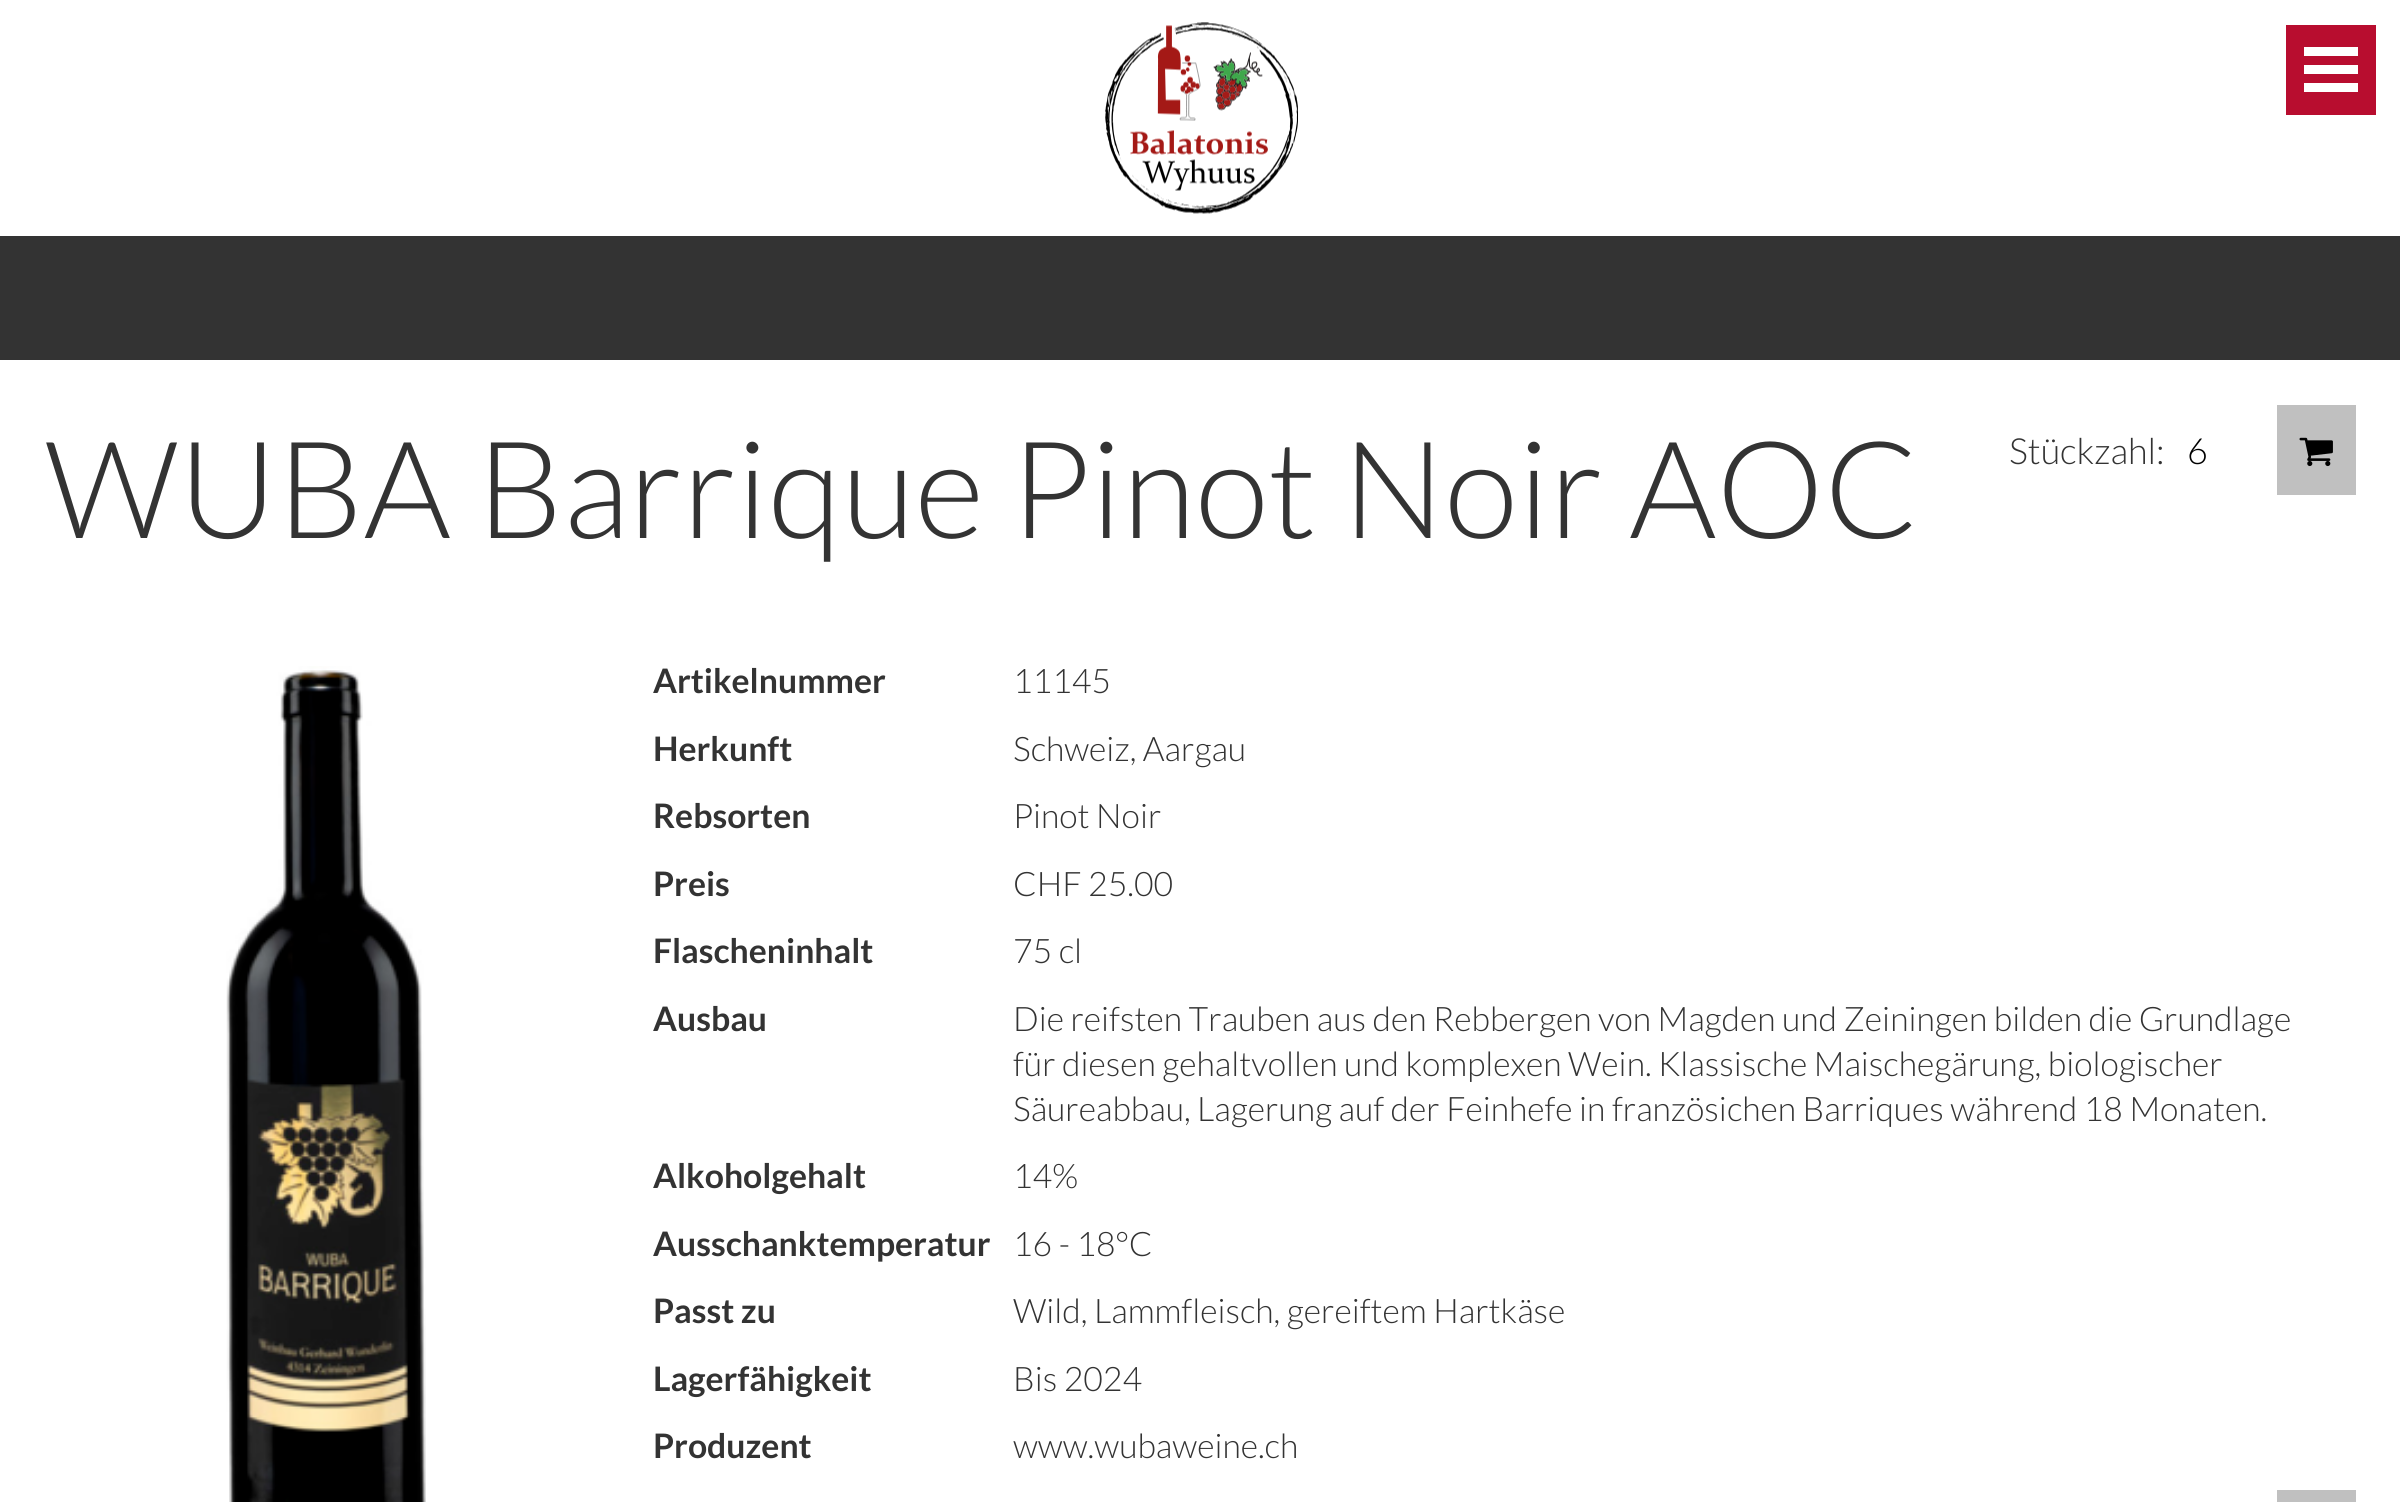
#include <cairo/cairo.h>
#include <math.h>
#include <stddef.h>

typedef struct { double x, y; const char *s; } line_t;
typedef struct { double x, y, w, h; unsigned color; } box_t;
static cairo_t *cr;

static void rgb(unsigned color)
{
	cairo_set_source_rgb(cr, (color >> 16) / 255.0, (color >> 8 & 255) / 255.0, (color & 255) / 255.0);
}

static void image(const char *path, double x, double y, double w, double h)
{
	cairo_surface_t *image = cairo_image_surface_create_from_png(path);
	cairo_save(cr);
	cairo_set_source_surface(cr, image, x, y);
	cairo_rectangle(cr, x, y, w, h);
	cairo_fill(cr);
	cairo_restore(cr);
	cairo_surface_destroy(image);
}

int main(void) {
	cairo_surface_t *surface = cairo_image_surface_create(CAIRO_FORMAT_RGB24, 2400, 1502);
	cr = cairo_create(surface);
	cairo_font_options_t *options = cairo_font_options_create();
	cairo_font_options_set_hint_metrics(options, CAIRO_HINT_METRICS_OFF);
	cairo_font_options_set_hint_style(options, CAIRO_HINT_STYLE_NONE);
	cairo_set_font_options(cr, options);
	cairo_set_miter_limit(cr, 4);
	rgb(0xffffff);
	cairo_paint(cr);
	image("img/1.png", 1105, 22, 193, 192);
	{
		static const box_t items[] = {
			{2286, 25, 90, 90, 0xb80d2f},
			{2304, 47, 54, 9, 0xffffff},
			{2304, 65, 54, 9, 0xffffff},
			{2304, 83, 54, 9, 0xffffff},
			{0, 236, 2400, 124, 0x333333},
			{2277, 405, 79, 90, 0xc0c0c0},
		};
		for (size_t i = 0; i < sizeof items / sizeof *items; i++) {
			rgb(items[i].color);
			cairo_rectangle(cr, items[i].x, items[i].y, items[i].w, items[i].h);
			cairo_fill(cr);
		}
	}
	image("img/2.png", 2299, 437, 34, 30);
	image("img/3.png", 226, 666, 200, 836);
	cairo_rectangle(cr, 2277, 1490, 79, 12);
	cairo_fill(cr);
	cairo_select_font_face(cr, "Lato Light", CAIRO_FONT_SLANT_NORMAL, CAIRO_FONT_WEIGHT_NORMAL);
	cairo_set_font_size(cr, 135);
	rgb(0x333333);
	cairo_move_to(cr, 45, 538);
	cairo_show_text(cr, "WUBA Barrique Pinot Noir AOC");
	cairo_set_font_size(cr, 36);
	cairo_move_to(cr, 2009, 464);
	cairo_show_text(cr, "Stückzahl:");
	rgb(0x000000);
	cairo_move_to(cr, 2187, 464);
	cairo_show_text(cr, "6");
	cairo_select_font_face(cr, "Lato", CAIRO_FONT_SLANT_NORMAL, CAIRO_FONT_WEIGHT_BOLD);
	cairo_set_font_size(cr, 33.75);
	rgb(0x333333);
	cairo_move_to(cr, 653, 693);
	cairo_show_text(cr, "Artikelnummer");
	cairo_select_font_face(cr, "Lato Light", CAIRO_FONT_SLANT_NORMAL, CAIRO_FONT_WEIGHT_NORMAL);
	cairo_move_to(cr, 1013, 693);
	cairo_show_text(cr, "11145");
	cairo_select_font_face(cr, "Lato", CAIRO_FONT_SLANT_NORMAL, CAIRO_FONT_WEIGHT_BOLD);
	cairo_move_to(cr, 653, 761);
	cairo_show_text(cr, "Herkunft");
	cairo_select_font_face(cr, "Lato Light", CAIRO_FONT_SLANT_NORMAL, CAIRO_FONT_WEIGHT_NORMAL);
	cairo_move_to(cr, 1013, 761);
	cairo_show_text(cr, "Schweiz, Aargau");
	cairo_select_font_face(cr, "Lato", CAIRO_FONT_SLANT_NORMAL, CAIRO_FONT_WEIGHT_BOLD);
	cairo_move_to(cr, 653, 828);
	cairo_show_text(cr, "Rebsorten");
	cairo_select_font_face(cr, "Lato Light", CAIRO_FONT_SLANT_NORMAL, CAIRO_FONT_WEIGHT_NORMAL);
	cairo_move_to(cr, 1013, 828);
	cairo_show_text(cr, "Pinot Noir");
	cairo_select_font_face(cr, "Lato", CAIRO_FONT_SLANT_NORMAL, CAIRO_FONT_WEIGHT_BOLD);
	cairo_move_to(cr, 653, 896);
	cairo_show_text(cr, "Preis");
	cairo_select_font_face(cr, "Lato Light", CAIRO_FONT_SLANT_NORMAL, CAIRO_FONT_WEIGHT_NORMAL);
	cairo_move_to(cr, 1013, 896);
	cairo_show_text(cr, "CHF 25.00");
	cairo_select_font_face(cr, "Lato", CAIRO_FONT_SLANT_NORMAL, CAIRO_FONT_WEIGHT_BOLD);
	cairo_move_to(cr, 653, 963);
	cairo_show_text(cr, "Flascheninhalt");
	cairo_select_font_face(cr, "Lato Light", CAIRO_FONT_SLANT_NORMAL, CAIRO_FONT_WEIGHT_NORMAL);
	cairo_move_to(cr, 1013, 963);
	cairo_show_text(cr, "75 cl");
	cairo_select_font_face(cr, "Lato", CAIRO_FONT_SLANT_NORMAL, CAIRO_FONT_WEIGHT_BOLD);
	cairo_move_to(cr, 653, 1031);
	cairo_show_text(cr, "Ausbau");
	cairo_select_font_face(cr, "Lato Light", CAIRO_FONT_SLANT_NORMAL, CAIRO_FONT_WEIGHT_NORMAL);
	{
		static const line_t items[] = {
			{1013, 1031, "Die reifsten Trauben aus den Rebbergen von Magden und Zeiningen bilden die Grundlage"},
			{1013, 1076, "für diesen gehaltvollen und komplexen Wein. Klassische Maischegärung, biologischer"},
			{1013, 1121, "Säureabbau, Lagerung auf der Feinhefe in französichen Barriques während 18 Monaten."},
		};
		for (size_t i = 0; i < sizeof items / sizeof *items; i++) {
			cairo_move_to(cr, items[i].x, items[i].y);
			cairo_show_text(cr, items[i].s);
		}
	}
	cairo_select_font_face(cr, "Lato", CAIRO_FONT_SLANT_NORMAL, CAIRO_FONT_WEIGHT_BOLD);
	cairo_move_to(cr, 653, 1188);
	cairo_show_text(cr, "Alkoholgehalt");
	cairo_select_font_face(cr, "Lato Light", CAIRO_FONT_SLANT_NORMAL, CAIRO_FONT_WEIGHT_NORMAL);
	cairo_move_to(cr, 1013, 1188);
	cairo_show_text(cr, "14%");
	cairo_select_font_face(cr, "Lato", CAIRO_FONT_SLANT_NORMAL, CAIRO_FONT_WEIGHT_BOLD);
	cairo_move_to(cr, 653, 1256);
	cairo_show_text(cr, "Ausschanktemperatur");
	cairo_select_font_face(cr, "Lato Light", CAIRO_FONT_SLANT_NORMAL, CAIRO_FONT_WEIGHT_NORMAL);
	cairo_move_to(cr, 1013, 1256);
	cairo_show_text(cr, "16 - 18°C");
	cairo_select_font_face(cr, "Lato", CAIRO_FONT_SLANT_NORMAL, CAIRO_FONT_WEIGHT_BOLD);
	cairo_move_to(cr, 653, 1323);
	cairo_show_text(cr, "Passt zu");
	cairo_select_font_face(cr, "Lato Light", CAIRO_FONT_SLANT_NORMAL, CAIRO_FONT_WEIGHT_NORMAL);
	cairo_move_to(cr, 1013, 1323);
	cairo_show_text(cr, "Wild, Lammfleisch, gereiftem Hartkäse");
	cairo_select_font_face(cr, "Lato", CAIRO_FONT_SLANT_NORMAL, CAIRO_FONT_WEIGHT_BOLD);
	cairo_move_to(cr, 653, 1391);
	cairo_show_text(cr, "Lagerfähigkeit");
	cairo_select_font_face(cr, "Lato Light", CAIRO_FONT_SLANT_NORMAL, CAIRO_FONT_WEIGHT_NORMAL);
	cairo_move_to(cr, 1013, 1391);
	cairo_show_text(cr, "Bis 2024");
	cairo_select_font_face(cr, "Lato", CAIRO_FONT_SLANT_NORMAL, CAIRO_FONT_WEIGHT_BOLD);
	cairo_move_to(cr, 653, 1458);
	cairo_show_text(cr, "Produzent");
	cairo_select_font_face(cr, "Lato Light", CAIRO_FONT_SLANT_NORMAL, CAIRO_FONT_WEIGHT_NORMAL);
	cairo_move_to(cr, 1013, 1458);
	cairo_show_text(cr, "www.wubaweine.ch");
	cairo_surface_write_to_png(surface, "page.png");
	cairo_font_options_destroy(options);
	cairo_destroy(cr);
	cairo_surface_destroy(surface);
	return 0;
}
